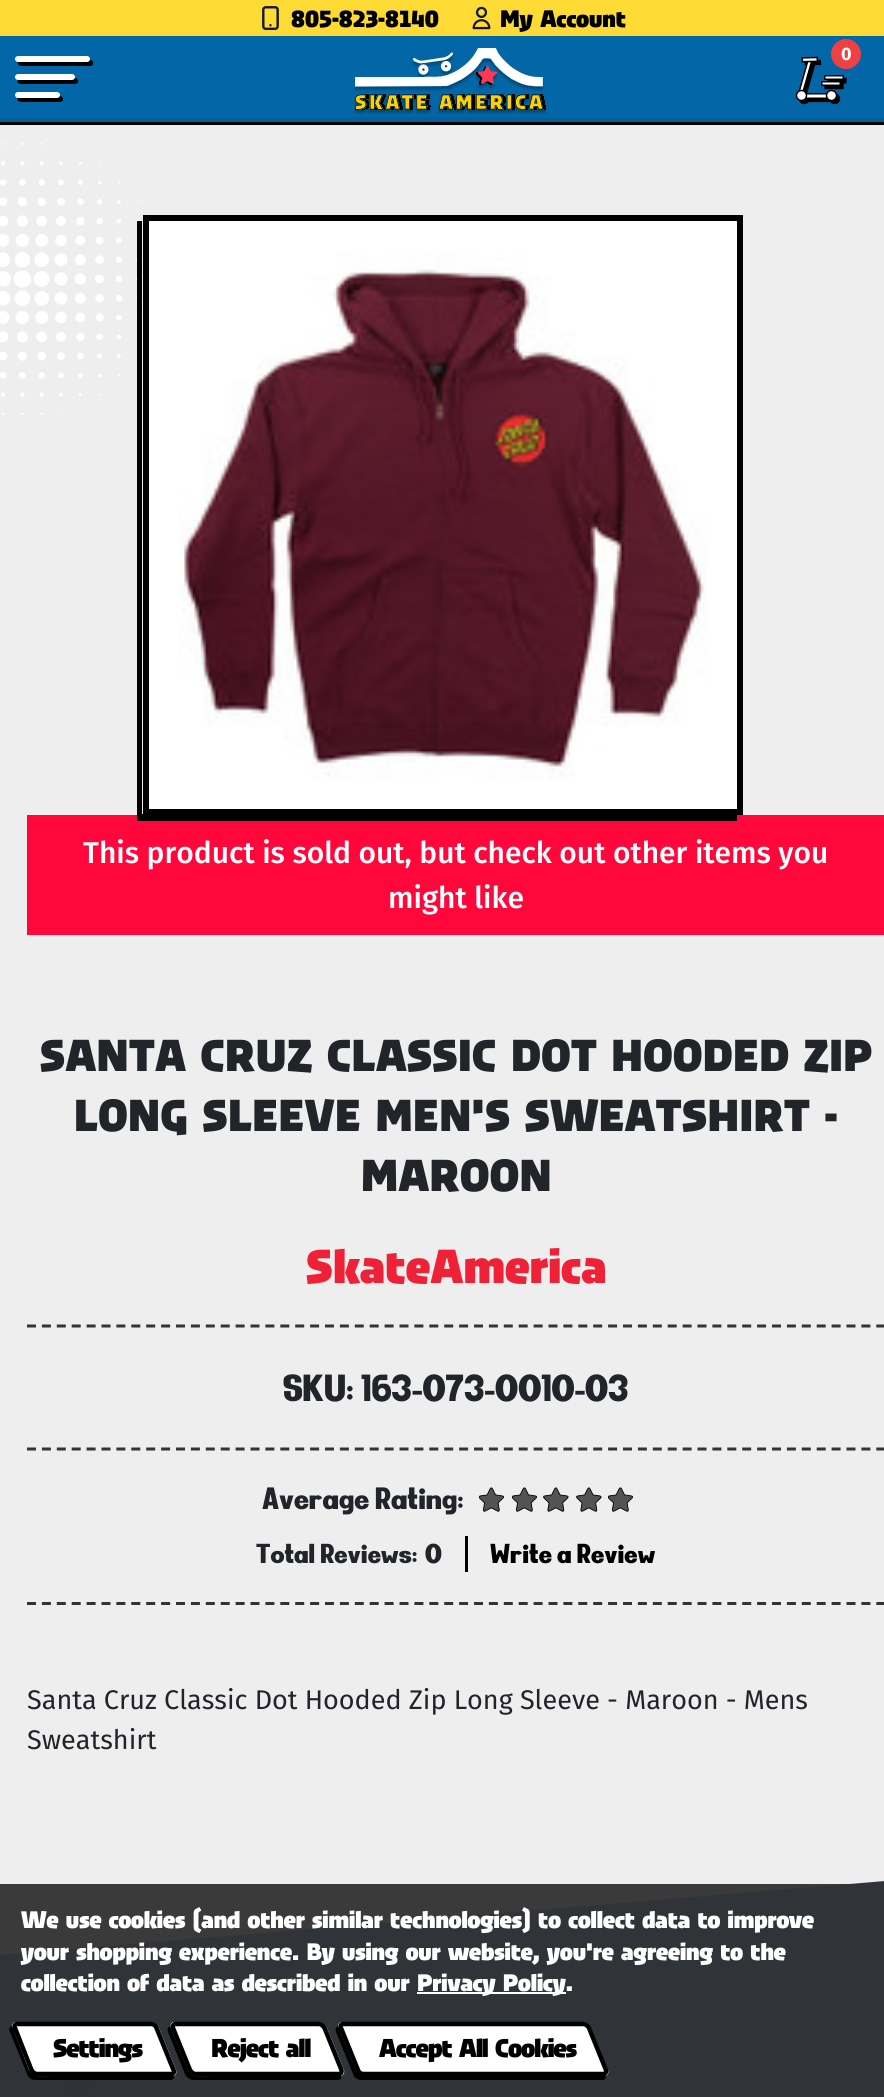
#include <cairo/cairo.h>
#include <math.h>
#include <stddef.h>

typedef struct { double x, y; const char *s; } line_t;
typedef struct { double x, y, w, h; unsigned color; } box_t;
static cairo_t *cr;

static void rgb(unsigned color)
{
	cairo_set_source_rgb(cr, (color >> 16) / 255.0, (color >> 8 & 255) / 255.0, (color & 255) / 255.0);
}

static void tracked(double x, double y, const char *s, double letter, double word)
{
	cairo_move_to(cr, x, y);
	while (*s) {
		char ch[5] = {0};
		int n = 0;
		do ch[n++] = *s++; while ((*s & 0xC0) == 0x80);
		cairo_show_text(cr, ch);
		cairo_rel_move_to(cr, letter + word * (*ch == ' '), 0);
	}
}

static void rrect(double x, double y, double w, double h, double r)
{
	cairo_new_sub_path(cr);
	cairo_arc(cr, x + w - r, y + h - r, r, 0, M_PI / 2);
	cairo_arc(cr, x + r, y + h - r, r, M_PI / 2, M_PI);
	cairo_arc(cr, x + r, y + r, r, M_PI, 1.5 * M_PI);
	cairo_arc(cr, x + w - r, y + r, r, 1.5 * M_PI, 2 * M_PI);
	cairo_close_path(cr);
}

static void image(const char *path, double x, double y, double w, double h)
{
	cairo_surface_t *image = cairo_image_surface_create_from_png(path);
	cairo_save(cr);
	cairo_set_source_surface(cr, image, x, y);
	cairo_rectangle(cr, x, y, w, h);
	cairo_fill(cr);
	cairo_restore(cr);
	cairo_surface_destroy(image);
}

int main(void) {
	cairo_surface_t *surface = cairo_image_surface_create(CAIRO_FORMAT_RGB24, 884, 2097);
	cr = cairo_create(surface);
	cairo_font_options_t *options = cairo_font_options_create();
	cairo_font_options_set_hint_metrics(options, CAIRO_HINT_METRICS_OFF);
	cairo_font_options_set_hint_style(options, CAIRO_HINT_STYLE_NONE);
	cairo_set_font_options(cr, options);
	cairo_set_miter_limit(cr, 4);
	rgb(0xeeeeee);
	cairo_paint(cr);
	rgb(0x3b3a3a);
	cairo_rectangle(cr, 0, 1884, 849, 71);
	cairo_fill(cr);
	rgb(0xfddb34);
	cairo_rectangle(cr, 0, 0, 884, 36);
	cairo_fill(cr);
	image("img/1.png", 262, 6, 17, 24);
	image("img/2.png", 472, 6, 19, 24);
	{
		static const box_t items[] = {
			{0, 117, 884, 5, 0x085e96},
			{0, 122, 884, 3, 0x000000},
			{0, 36, 884, 81, 0x0366a6},
		};
		for (size_t i = 0; i < sizeof items / sizeof *items; i++) {
			rgb(items[i].color);
			cairo_rectangle(cr, items[i].x, items[i].y, items[i].w, items[i].h);
			cairo_fill(cr);
		}
	}
	rgb(0x000000);
	cairo_new_path(cr);
	cairo_move_to(cr, 18, 62);
	cairo_curve_to(cr, 17, 63, 19, 66, 21, 66);
	cairo_line_to(cr, 91, 66);
	cairo_curve_to(cr, 95, 64, 93, 60, 90, 60);
	cairo_line_to(cr, 87, 61);
	cairo_close_path(cr);
	cairo_fill(cr);
	rgb(0xffffff);
	rrect(15, 56, 75, 6, 3);
	cairo_fill(cr);
	rgb(0x000000);
	cairo_new_path(cr);
	cairo_move_to(cr, 18, 80);
	cairo_curve_to(cr, 15, 85, 24, 84, 30, 84);
	cairo_line_to(cr, 76, 84);
	cairo_curve_to(cr, 80, 82, 78, 78, 75, 78);
	cairo_line_to(cr, 73, 79);
	cairo_close_path(cr);
	cairo_fill(cr);
	rgb(0xffffff);
	rrect(15, 74, 60, 6, 3);
	cairo_fill(cr);
	rgb(0x000000);
	cairo_new_path(cr);
	cairo_move_to(cr, 18, 98);
	cairo_curve_to(cr, 15, 103, 26, 102, 28, 102);
	cairo_line_to(cr, 60, 102);
	cairo_curve_to(cr, 64, 102, 64, 96, 60, 96);
	cairo_line_to(cr, 58, 97);
	cairo_close_path(cr);
	cairo_fill(cr);
	rgb(0xffffff);
	rrect(15, 92, 45, 6, 3);
	cairo_fill(cr);
	image("img/3.png", 354, 48, 192, 66);
	image("img/4.png", 795, 56, 52, 49);
	rgb(0xef4044);
	cairo_arc(cr, 846, 54, 15, 0, 2 * M_PI);
	cairo_fill(cr);
	image("img/5.png", 0, 142, 140, 273);
	rgb(0xff073a);
	cairo_rectangle(cr, 27, 815, 857, 120);
	cairo_fill(cr);
	rgb(0x000000);
	cairo_new_path(cr);
	cairo_move_to(cr, 137, 221);
	cairo_line_to(cr, 137, 821);
	cairo_line_to(cr, 737, 821);
	cairo_line_to(cr, 737, 814);
	cairo_line_to(cr, 142, 814);
	cairo_line_to(cr, 142, 221);
	cairo_close_path(cr);
	cairo_fill(cr);
	rgb(0xffffff);
	cairo_rectangle(cr, 146, 218, 594, 594);
	cairo_fill_preserve(cr);
	rgb(0x000000);
	cairo_set_line_width(cr, 6);
	cairo_stroke(cr);
	image("img/6.png", 178, 251, 529, 528);
	cairo_new_path(cr);
	cairo_move_to(cr, 27, 1326);
	cairo_line_to(cr, 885, 1326);
	rgb(0x333333);
	cairo_set_line_width(cr, 3);
	cairo_set_dash(cr, (double[]){9, 5.9}, 2, 0);
	cairo_stroke(cr);
	cairo_new_path(cr);
	cairo_move_to(cr, 27, 1449);
	cairo_line_to(cr, 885, 1449);
	cairo_stroke(cr);
	cairo_new_path(cr);
	cairo_move_to(cr, 27, 1603.5);
	cairo_line_to(cr, 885, 1603.5);
	cairo_stroke(cr);
	image("img/7.png", 479, 1487, 25, 25);
	image("img/7.png", 512, 1487, 25, 25);
	image("img/8.png", 543, 1487, 26, 25);
	image("img/8.png", 576, 1487, 26, 25);
	image("img/7.png", 608, 1487, 25, 25);
	rgb(0x000000);
	cairo_rectangle(cr, 465, 1536, 3, 36);
	cairo_fill(cr);
	rgb(0x303337);
	cairo_new_path(cr);
	cairo_move_to(cr, 0, 1955);
	cairo_line_to(cr, 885, 1881);
	cairo_line_to(cr, 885, 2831);
	cairo_line_to(cr, 0, 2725);
	cairo_close_path(cr);
	cairo_fill(cr);
	image("img/9.png", 0, 2008, 95, 89);
	rgb(0xffffff);
	cairo_rectangle(cr, 417, 1992, 149, 2);
	cairo_fill(cr);
	rgb(0x000000);
	cairo_new_path(cr);
	cairo_move_to(cr, 12, 2026);
	cairo_curve_to(cr, 10, 2027, 8, 2029, 10, 2032);
	cairo_line_to(cr, 27, 2074);
	cairo_curve_to(cr, 28, 2078, 32, 2080, 35, 2080);
	cairo_line_to(cr, 170, 2080);
	cairo_curve_to(cr, 173, 2080, 174, 2079, 174, 2076);
	cairo_line_to(cr, 60, 2076);
	cairo_curve_to(cr, 30, 2076, 34, 2081, 24, 2056);
	cairo_close_path(cr);
	cairo_fill(cr);
	rgb(0xffffff);
	cairo_new_path(cr);
	cairo_move_to(cr, 16, 2022);
	cairo_line_to(cr, 150, 2022);
	cairo_curve_to(cr, 154, 2022, 158, 2025, 159, 2028);
	cairo_line_to(cr, 176, 2070);
	cairo_curve_to(cr, 177, 2073, 176, 2076, 172, 2076);
	cairo_line_to(cr, 38, 2076);
	cairo_curve_to(cr, 35, 2076, 31, 2073, 29, 2070);
	cairo_line_to(cr, 13, 2028);
	cairo_curve_to(cr, 11, 2025, 13, 2022, 16, 2022);
	cairo_close_path(cr);
	cairo_fill(cr);
	cairo_new_path(cr);
	cairo_move_to(cr, 17, 2024);
	cairo_line_to(cr, 151.5, 2024);
	cairo_curve_to(cr, 153.5, 2024, 156, 2026, 156.5, 2028);
	cairo_line_to(cr, 173.5, 2070);
	cairo_curve_to(cr, 174.5, 2072, 173.5, 2074, 171.5, 2074);
	cairo_line_to(cr, 37, 2074);
	cairo_curve_to(cr, 35, 2074, 32.5, 2072, 31.5, 2070);
	cairo_line_to(cr, 15, 2028);
	cairo_curve_to(cr, 14, 2026, 15, 2024, 17, 2024);
	cairo_close_path(cr);
	rgb(0x000000);
	cairo_set_line_width(cr, 4.5);
	cairo_set_dash(cr, NULL, 0, 0);
	cairo_stroke(cr);
	cairo_new_path(cr);
	cairo_move_to(cr, 170, 2026);
	cairo_curve_to(cr, 168, 2027, 167, 2029, 168, 2032);
	cairo_line_to(cr, 185, 2074);
	cairo_curve_to(cr, 187, 2078, 190, 2080, 194, 2080);
	cairo_line_to(cr, 337, 2080);
	cairo_curve_to(cr, 340, 2080, 342, 2079, 341, 2076);
	cairo_line_to(cr, 220, 2076);
	cairo_curve_to(cr, 189, 2076, 192, 2081, 182, 2056);
	cairo_close_path(cr);
	cairo_fill(cr);
	rgb(0xffffff);
	cairo_new_path(cr);
	cairo_move_to(cr, 174, 2022);
	cairo_line_to(cr, 318, 2022);
	cairo_curve_to(cr, 322, 2022, 325, 2025, 327, 2028);
	cairo_line_to(cr, 344, 2070);
	cairo_curve_to(cr, 345, 2073, 343, 2076, 340, 2076);
	cairo_line_to(cr, 196, 2076);
	cairo_curve_to(cr, 193, 2076, 189, 2073, 188, 2070);
	cairo_line_to(cr, 171, 2028);
	cairo_curve_to(cr, 170, 2025, 171, 2022, 174, 2022);
	cairo_close_path(cr);
	cairo_fill(cr);
	cairo_new_path(cr);
	cairo_move_to(cr, 175.5, 2024);
	cairo_line_to(cr, 319, 2024);
	cairo_curve_to(cr, 321, 2024, 323.5, 2026, 324.5, 2028);
	cairo_line_to(cr, 341.5, 2070);
	cairo_curve_to(cr, 342, 2072, 341, 2074, 339, 2074);
	cairo_line_to(cr, 195.5, 2074);
	cairo_curve_to(cr, 193.5, 2074, 191, 2072, 190, 2070);
	cairo_line_to(cr, 173, 2028);
	cairo_curve_to(cr, 172.5, 2026, 173.5, 2024, 175.5, 2024);
	cairo_close_path(cr);
	rgb(0x000000);
	cairo_stroke(cr);
	cairo_new_path(cr);
	cairo_move_to(cr, 338, 2026);
	cairo_curve_to(cr, 336, 2027, 335, 2030, 336, 2032);
	cairo_line_to(cr, 353, 2074);
	cairo_curve_to(cr, 354, 2078, 358, 2080, 361, 2080);
	cairo_line_to(cr, 602, 2080);
	cairo_curve_to(cr, 604, 2080, 606, 2079, 606, 2076);
	cairo_line_to(cr, 364, 2076);
	cairo_curve_to(cr, 357, 2076, 355, 2068, 353, 2063);
	cairo_close_path(cr);
	cairo_fill(cr);
	rgb(0xffffff);
	cairo_new_path(cr);
	cairo_move_to(cr, 342, 2022);
	cairo_line_to(cr, 583, 2022);
	cairo_curve_to(cr, 586, 2022, 590, 2025, 591, 2028);
	cairo_line_to(cr, 608, 2070);
	cairo_curve_to(cr, 609, 2073, 608, 2076, 604, 2076);
	cairo_line_to(cr, 364, 2076);
	cairo_curve_to(cr, 361, 2076, 357, 2073, 356, 2070);
	cairo_line_to(cr, 339, 2028);
	cairo_curve_to(cr, 337, 2025, 339, 2022, 342, 2022);
	cairo_close_path(cr);
	cairo_fill(cr);
	cairo_new_path(cr);
	cairo_move_to(cr, 343, 2024);
	cairo_line_to(cr, 583.5, 2024);
	cairo_curve_to(cr, 585.5, 2024, 588, 2026, 589, 2028);
	cairo_line_to(cr, 606, 2070);
	cairo_curve_to(cr, 606.5, 2072, 605.5, 2074, 603.5, 2074);
	cairo_line_to(cr, 363, 2074);
	cairo_curve_to(cr, 361, 2074, 358.5, 2072, 358, 2070);
	cairo_line_to(cr, 341, 2028);
	cairo_curve_to(cr, 340, 2026, 341, 2024, 343, 2024);
	cairo_close_path(cr);
	rgb(0x000000);
	cairo_stroke(cr);
	cairo_select_font_face(cr, "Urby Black", CAIRO_FONT_SLANT_NORMAL, CAIRO_FONT_WEIGHT_NORMAL);
	cairo_set_font_size(cr, 24);
	cairo_move_to(cr, 291, 27);
	cairo_show_text(cr, "805-823-8140");
	cairo_move_to(cr, 500, 27);
	cairo_show_text(cr, "My Account");
	cairo_select_font_face(cr, "Fira Sans", CAIRO_FONT_SLANT_NORMAL, CAIRO_FONT_WEIGHT_BOLD);
	cairo_set_font_size(cr, 18);
	rgb(0xffffff);
	cairo_move_to(cr, 841, 60);
	cairo_show_text(cr, "0");
	cairo_select_font_face(cr, "Fira Sans Medium", CAIRO_FONT_SLANT_NORMAL, CAIRO_FONT_WEIGHT_NORMAL);
	cairo_set_font_size(cr, 30);
	cairo_move_to(cr, 83, 863);
	cairo_show_text(cr, "This product is sold out, but check out other items you");
	cairo_move_to(cr, 388, 908);
	cairo_show_text(cr, "might like");
	cairo_select_font_face(cr, "Urby Black", CAIRO_FONT_SLANT_NORMAL, CAIRO_FONT_WEIGHT_NORMAL);
	cairo_set_font_size(cr, 45);
	rgb(0x212529);
	{
		static const line_t items[] = {
			{40, 1071, "SANTA CRUZ CLASSIC DOT HOODED ZIP"},
			{74, 1131, "LONG SLEEVE MEN'S SWEATSHIRT -"},
			{361, 1191, "MAROON"},
		};
		for (size_t i = 0; i < sizeof items / sizeof *items; i++) {
			tracked(items[i].x, items[i].y, items[i].s, 0.4, 0);
		}
	}
	cairo_set_font_size(cr, 48);
	rgb(0xee2137);
	tracked(306, 1283, "SkateAmerica", 0.4, 0);
	cairo_select_font_face(cr, "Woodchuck", CAIRO_FONT_SLANT_NORMAL, CAIRO_FONT_WEIGHT_BOLD);
	cairo_set_font_size(cr, 33);
	rgb(0x212529);
	cairo_move_to(cr, 283, 1401);
	cairo_show_text(cr, "SKU: 163-073-0010-03");
	cairo_set_font_size(cr, 27);
	cairo_move_to(cr, 262, 1509);
	cairo_show_text(cr, "Average Rating:");
	cairo_set_font_size(cr, 24);
	cairo_move_to(cr, 256, 1563);
	cairo_show_text(cr, "Total Reviews:");
	cairo_move_to(cr, 425, 1563);
	cairo_show_text(cr, "0");
	rgb(0x000000);
	cairo_move_to(cr, 490, 1563);
	cairo_show_text(cr, "Write a Review");
	cairo_select_font_face(cr, "Fira Sans", CAIRO_FONT_SLANT_NORMAL, CAIRO_FONT_WEIGHT_NORMAL);
	cairo_set_font_size(cr, 27);
	rgb(0x212529);
	cairo_move_to(cr, 27, 1709);
	cairo_show_text(cr, "Santa Cruz Classic Dot Hooded Zip Long Sleeve - Maroon - Mens");
	cairo_move_to(cr, 27, 1749);
	cairo_show_text(cr, "Sweatshirt");
	cairo_select_font_face(cr, "Urby Black", CAIRO_FONT_SLANT_NORMAL, CAIRO_FONT_WEIGHT_NORMAL);
	cairo_set_font_size(cr, 24);
	rgb(0xffffff);
	{
		static const line_t items[] = {
			{21, 1928, "We use cookies (and other similar technologies) to collect data to improve"},
			{21, 1960, "your shopping experience. By using our website, you're agreeing to the"},
			{21, 1991, "collection of data as described in our"},
			{417, 1991, "Privacy Policy."},
		};
		for (size_t i = 0; i < sizeof items / sizeof *items; i++) {
			tracked(items[i].x, items[i].y, items[i].s, -0.08, 0);
		}
	}
	cairo_set_font_size(cr, 26);
	rgb(0x000000);
	tracked(53, 2057, "Settings", -1, 0);
	tracked(211, 2057, "Reject all", -0.75, 0);
	tracked(379, 2057, "Accept All Cookies", -0.8, 0);
	cairo_surface_write_to_png(surface, "page.png");
	cairo_font_options_destroy(options);
	cairo_destroy(cr);
	cairo_surface_destroy(surface);
	return 0;
}
